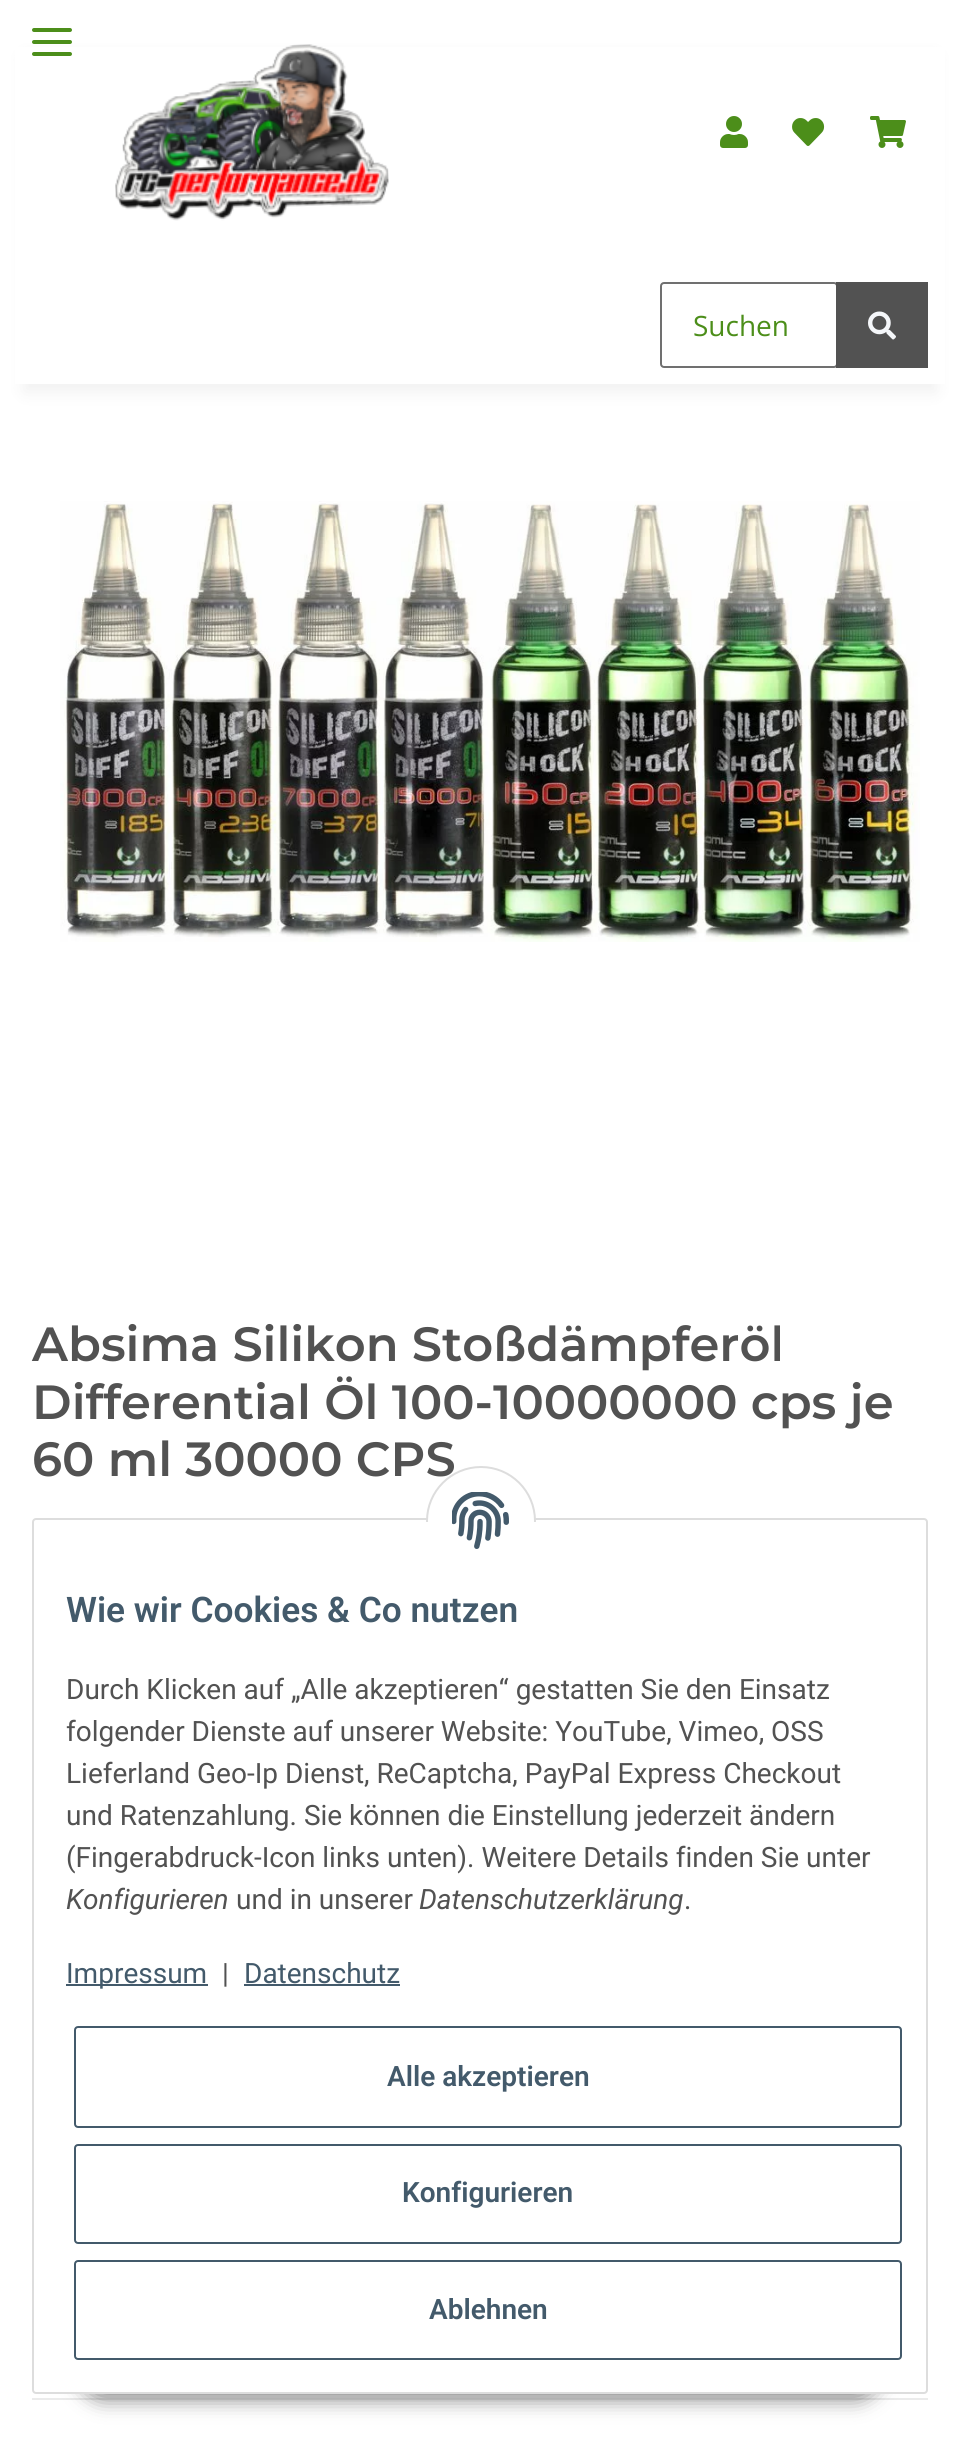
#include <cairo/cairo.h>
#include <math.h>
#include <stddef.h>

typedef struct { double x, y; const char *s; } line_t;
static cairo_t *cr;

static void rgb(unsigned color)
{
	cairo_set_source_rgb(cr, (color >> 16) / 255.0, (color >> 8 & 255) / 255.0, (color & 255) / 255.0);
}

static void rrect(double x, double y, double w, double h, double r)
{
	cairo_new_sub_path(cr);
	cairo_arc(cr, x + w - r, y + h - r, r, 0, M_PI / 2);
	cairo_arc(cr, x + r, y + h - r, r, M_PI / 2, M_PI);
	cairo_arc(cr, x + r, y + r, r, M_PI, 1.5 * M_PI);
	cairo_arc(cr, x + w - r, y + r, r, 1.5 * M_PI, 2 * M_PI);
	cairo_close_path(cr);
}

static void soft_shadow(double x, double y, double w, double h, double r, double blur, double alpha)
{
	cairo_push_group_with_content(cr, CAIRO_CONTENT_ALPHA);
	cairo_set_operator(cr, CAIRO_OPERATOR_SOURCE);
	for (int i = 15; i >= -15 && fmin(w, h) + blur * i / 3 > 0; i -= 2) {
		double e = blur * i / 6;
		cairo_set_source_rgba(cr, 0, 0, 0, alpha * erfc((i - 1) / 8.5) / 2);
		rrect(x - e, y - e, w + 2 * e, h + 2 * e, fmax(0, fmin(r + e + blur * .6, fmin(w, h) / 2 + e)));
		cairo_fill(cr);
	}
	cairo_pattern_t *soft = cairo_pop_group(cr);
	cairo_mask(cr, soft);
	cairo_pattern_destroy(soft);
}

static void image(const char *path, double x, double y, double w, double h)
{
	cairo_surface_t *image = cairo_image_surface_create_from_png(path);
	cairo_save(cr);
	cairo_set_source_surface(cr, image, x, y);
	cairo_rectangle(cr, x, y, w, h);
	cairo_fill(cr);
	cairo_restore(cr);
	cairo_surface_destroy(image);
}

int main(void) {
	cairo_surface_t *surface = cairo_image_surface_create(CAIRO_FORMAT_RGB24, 960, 2457);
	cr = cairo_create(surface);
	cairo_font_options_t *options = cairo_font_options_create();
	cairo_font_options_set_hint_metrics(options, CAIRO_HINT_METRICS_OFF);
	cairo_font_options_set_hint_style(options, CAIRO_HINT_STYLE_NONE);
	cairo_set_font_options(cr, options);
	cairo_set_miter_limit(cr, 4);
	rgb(0xffffff);
	cairo_paint(cr);
	rgb(0x000000);
	soft_shadow(24, 56, 912, 336, 0, 9, 0.06);
	rgb(0xffffff);
	cairo_rectangle(cr, 15, 47, 930, 337);
	cairo_fill(cr);
	rgb(0x4c8e1a);
	rrect(32, 40, 40, 4, 2);
	cairo_fill(cr);
	rrect(32, 28, 40, 4, 2);
	cairo_fill(cr);
	rrect(32, 52, 40, 4, 2);
	cairo_fill(cr);
	image("img/1.png", 115, 44, 274, 177);
	image("img/2.png", 720, 116, 28, 32);
	image("img/3.png", 792, 118, 33, 28);
	image("img/4.png", 870, 116, 36, 32);
	rrect(661, 283, 176, 84, 3);
	rgb(0x707070);
	cairo_stroke(cr);
	rgb(0x525252);
	cairo_rectangle(cr, 836, 282, 92, 86);
	cairo_fill(cr);
	image("img/5.png", 868, 311, 28, 29);
	image("img/6.png", 60, 501, 860, 441);
	rgb(0xebebeb);
	cairo_rectangle(cr, 32, 2398, 896, 2);
	cairo_fill(cr);
	rgb(0x000000);
	soft_shadow(78, 2336, 804, 64, 32, 10, 0.45);
	rgb(0xffffff);
	rrect(33, 1519, 894, 874, 3);
	cairo_fill_preserve(cr);
	rgb(0xdddddd);
	cairo_stroke(cr);
	rgb(0x435a6b);
	cairo_rectangle(cr, 66, 1984, 142, 2);
	cairo_fill(cr);
	cairo_rectangle(cr, 244, 1984, 156, 2);
	cairo_fill(cr);
	rrect(75, 2027, 826, 100, 3);
	cairo_stroke(cr);
	rrect(75, 2145, 826, 98, 3);
	cairo_stroke(cr);
	rrect(75, 2261, 826, 98, 3);
	cairo_stroke(cr);
	cairo_select_font_face(cr, "Open Sans", CAIRO_FONT_SLANT_NORMAL, CAIRO_FONT_WEIGHT_NORMAL);
	cairo_set_font_size(cr, 28);
	rgb(0x4c8e1a);
	cairo_move_to(cr, 693, 336);
	cairo_show_text(cr, "Suchen");
	cairo_select_font_face(cr, "Montserrat SemiBold", CAIRO_FONT_SLANT_NORMAL, CAIRO_FONT_WEIGHT_NORMAL);
	cairo_set_font_size(cr, 48);
	rgb(0x525252);
	{
		static const line_t items[] = {
			{32, 1361, "Absima Silikon Stoßdämpferöl"},
			{32, 1419, "Differential Öl 100-10000000 cps je"},
			{32, 1476, "60 ml 30000 CPS"},
		};
		for (size_t i = 0; i < sizeof items / sizeof *items; i++) {
			cairo_move_to(cr, items[i].x, items[i].y);
			cairo_show_text(cr, items[i].s);
		}
	}
	rgb(0xffffff);
	cairo_new_path(cr);
	cairo_arc(cr, 481, 1521, 54, 0, 2 * M_PI);
	cairo_fill_preserve(cr);
	rgb(0xdddddd);
	cairo_stroke(cr);
	rgb(0xffffff);
	cairo_rectangle(cr, 426, 1522, 110, 54);
	cairo_fill(cr);
	image("img/7.png", 452, 1492, 57, 57);
	cairo_select_font_face(cr, "Roboto SemiBold", CAIRO_FONT_SLANT_NORMAL, CAIRO_FONT_WEIGHT_NORMAL);
	cairo_set_font_size(cr, 35.25);
	rgb(0x435a6b);
	cairo_move_to(cr, 66, 1622);
	cairo_show_text(cr, "Wie wir Cookies & Co nutzen");
	cairo_select_font_face(cr, "Roboto", CAIRO_FONT_SLANT_NORMAL, CAIRO_FONT_WEIGHT_NORMAL);
	cairo_set_font_size(cr, 28);
	rgb(0x525252);
	{
		static const line_t items[] = {
			{66, 1699, "Durch Klicken auf „Alle akzeptieren“ gestatten Sie den Einsatz"},
			{66, 1741, "folgender Dienste auf unserer Website: YouTube, Vimeo, OSS"},
			{66, 1783, "Lieferland Geo-Ip Dienst, ReCaptcha, PayPal Express Checkout"},
			{66, 1825, "und Ratenzahlung. Sie können die Einstellung jederzeit ändern"},
			{66, 1867, "(Fingerabdruck-Icon links unten). Weitere Details finden Sie unter"},
		};
		for (size_t i = 0; i < sizeof items / sizeof *items; i++) {
			cairo_move_to(cr, items[i].x, items[i].y);
			cairo_show_text(cr, items[i].s);
		}
	}
	cairo_select_font_face(cr, "Roboto", CAIRO_FONT_SLANT_ITALIC, CAIRO_FONT_WEIGHT_NORMAL);
	cairo_move_to(cr, 66, 1909);
	cairo_show_text(cr, "Konfigurieren");
	cairo_select_font_face(cr, "Roboto", CAIRO_FONT_SLANT_NORMAL, CAIRO_FONT_WEIGHT_NORMAL);
	cairo_move_to(cr, 236, 1909);
	cairo_show_text(cr, "und in unserer");
	cairo_select_font_face(cr, "Roboto", CAIRO_FONT_SLANT_ITALIC, CAIRO_FONT_WEIGHT_NORMAL);
	cairo_move_to(cr, 419, 1909);
	cairo_show_text(cr, "Datenschutzerklärung");
	cairo_select_font_face(cr, "Roboto", CAIRO_FONT_SLANT_NORMAL, CAIRO_FONT_WEIGHT_NORMAL);
	cairo_move_to(cr, 684, 1909);
	cairo_show_text(cr, ".");
	rgb(0x435a6b);
	cairo_move_to(cr, 66, 1983);
	cairo_show_text(cr, "Impressum");
	rgb(0x525252);
	cairo_move_to(cr, 222, 1983);
	cairo_show_text(cr, "|");
	rgb(0x435a6b);
	cairo_move_to(cr, 244, 1983);
	cairo_show_text(cr, "Datenschutz");
	cairo_select_font_face(cr, "Roboto SemiBold", CAIRO_FONT_SLANT_NORMAL, CAIRO_FONT_WEIGHT_NORMAL);
	{
		static const line_t items[] = {
			{387, 2086, "Alle akzeptieren"},
			{402, 2202, "Konfigurieren"},
			{429, 2319, "Ablehnen"},
		};
		for (size_t i = 0; i < sizeof items / sizeof *items; i++) {
			cairo_move_to(cr, items[i].x, items[i].y);
			cairo_show_text(cr, items[i].s);
		}
	}
	cairo_surface_write_to_png(surface, "page.png");
	cairo_font_options_destroy(options);
	cairo_destroy(cr);
	cairo_surface_destroy(surface);
	return 0;
}
